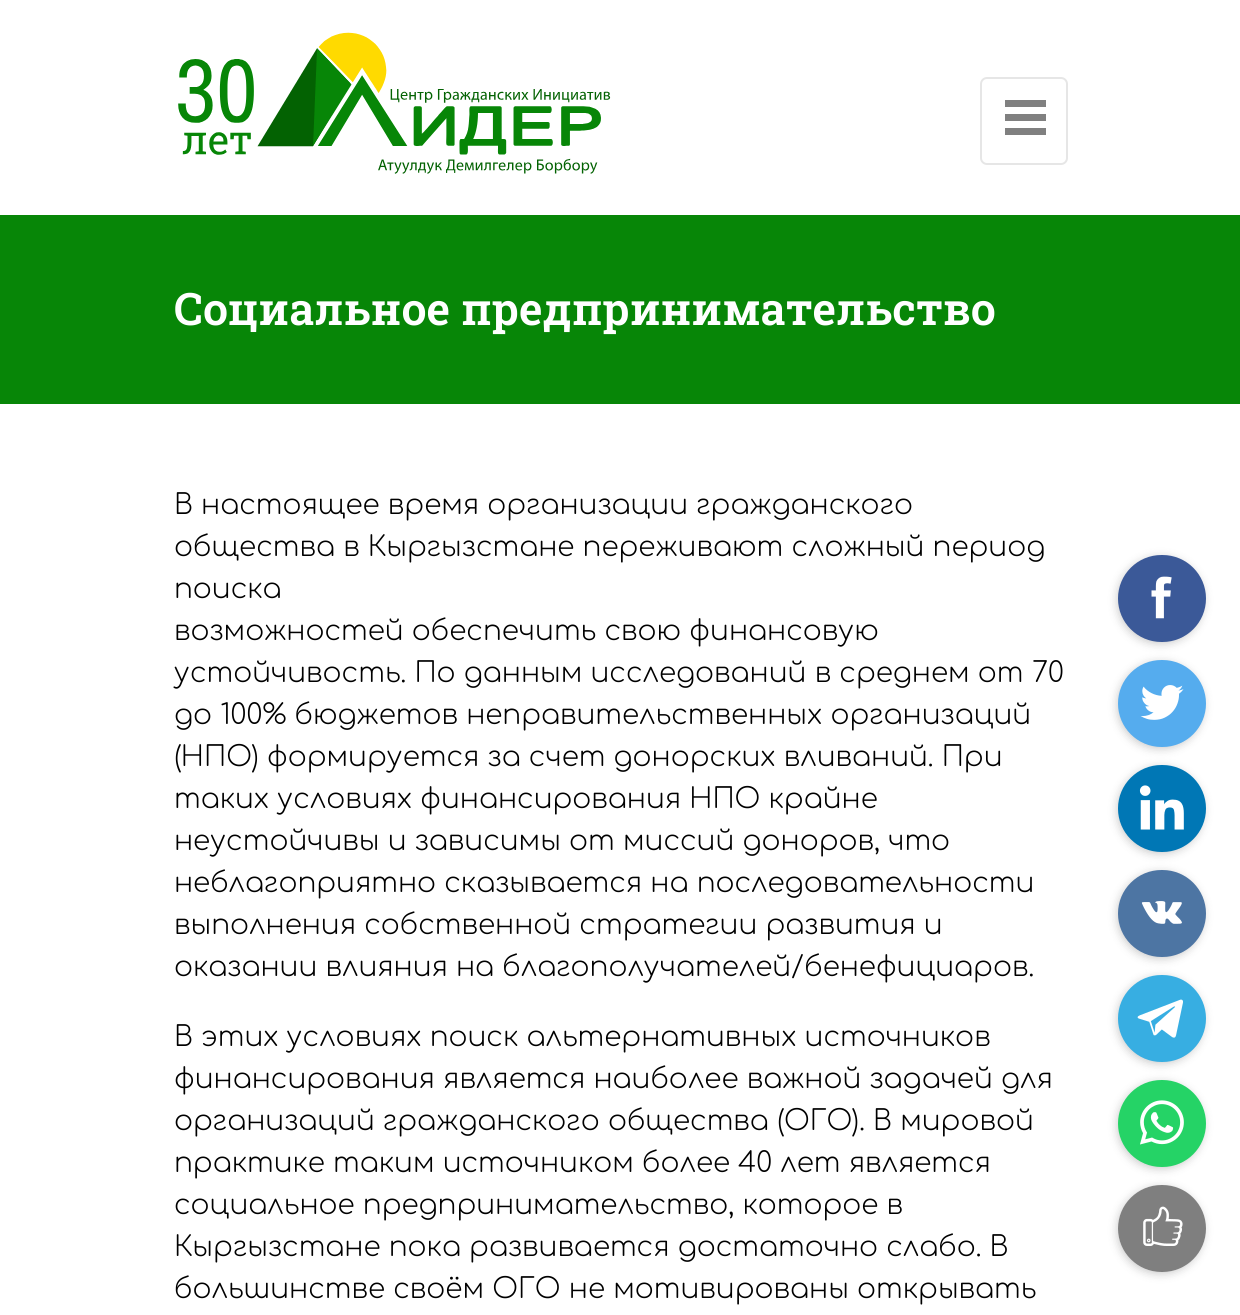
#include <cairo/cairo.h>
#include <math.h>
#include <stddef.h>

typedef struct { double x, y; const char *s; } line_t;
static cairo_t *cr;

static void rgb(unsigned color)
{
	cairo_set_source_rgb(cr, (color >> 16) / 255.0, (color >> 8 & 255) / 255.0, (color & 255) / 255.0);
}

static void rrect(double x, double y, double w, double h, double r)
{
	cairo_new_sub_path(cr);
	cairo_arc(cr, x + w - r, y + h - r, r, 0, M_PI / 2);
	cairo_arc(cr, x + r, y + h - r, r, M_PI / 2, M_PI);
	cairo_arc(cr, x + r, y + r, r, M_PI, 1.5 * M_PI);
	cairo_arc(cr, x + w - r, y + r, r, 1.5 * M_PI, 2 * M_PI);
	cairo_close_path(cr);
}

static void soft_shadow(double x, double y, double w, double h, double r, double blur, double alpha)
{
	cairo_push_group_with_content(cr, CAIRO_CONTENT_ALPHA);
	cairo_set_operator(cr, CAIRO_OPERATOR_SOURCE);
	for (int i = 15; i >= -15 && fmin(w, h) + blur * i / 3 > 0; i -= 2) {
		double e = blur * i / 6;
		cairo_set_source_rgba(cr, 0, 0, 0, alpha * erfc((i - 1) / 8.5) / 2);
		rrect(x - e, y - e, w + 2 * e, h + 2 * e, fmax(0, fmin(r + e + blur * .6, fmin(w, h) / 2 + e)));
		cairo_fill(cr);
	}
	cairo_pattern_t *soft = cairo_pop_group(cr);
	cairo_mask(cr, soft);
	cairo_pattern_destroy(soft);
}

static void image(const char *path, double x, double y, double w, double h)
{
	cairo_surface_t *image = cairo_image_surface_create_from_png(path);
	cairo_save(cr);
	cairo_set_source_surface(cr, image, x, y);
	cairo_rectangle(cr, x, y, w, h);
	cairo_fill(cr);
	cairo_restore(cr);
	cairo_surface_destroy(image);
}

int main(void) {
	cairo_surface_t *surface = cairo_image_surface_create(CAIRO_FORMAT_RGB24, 1240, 1315);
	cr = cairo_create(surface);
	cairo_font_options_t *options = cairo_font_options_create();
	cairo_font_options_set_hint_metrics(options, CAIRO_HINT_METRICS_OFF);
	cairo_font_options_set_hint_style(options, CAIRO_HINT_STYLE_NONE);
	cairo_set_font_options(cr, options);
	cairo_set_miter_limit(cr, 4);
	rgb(0xffffff);
	cairo_paint(cr);
	image("img/1.png", 178, 32, 433, 142);
	rrect(981, 78, 86, 86, 6);
	rgb(0xe6e6e6);
	cairo_stroke(cr);
	cairo_save(cr);
	cairo_rectangle(cr, 1005, 96, 42, 42);
	cairo_clip(cr);
	rgb(0x808080);
	cairo_new_path(cr);
	cairo_move_to(cr, 1046, 107);
	cairo_line_to(cr, 1004, 107);
	cairo_line_to(cr, 1004, 100);
	cairo_line_to(cr, 1046, 100);
	cairo_close_path(cr);
	cairo_move_to(cr, 1046, 114);
	cairo_line_to(cr, 1004, 114);
	cairo_line_to(cr, 1004, 121);
	cairo_line_to(cr, 1046, 121);
	cairo_close_path(cr);
	cairo_move_to(cr, 1046, 128);
	cairo_line_to(cr, 1004, 128);
	cairo_line_to(cr, 1004, 135);
	cairo_line_to(cr, 1046, 135);
	cairo_close_path(cr);
	cairo_fill(cr);
	cairo_restore(cr);
	rgb(0x078607);
	cairo_rectangle(cr, 0, 215, 1240, 189);
	cairo_fill(cr);
	rgb(0x000000);
	soft_shadow(1117, 557, 87, 87, 43.5, 4.5, 0.2);
	rgb(0x3b5998);
	rrect(1118, 555, 88, 87, 43.5);
	cairo_fill(cr);
	image("img/2.png", 1151, 576, 21, 43);
	rgb(0x000000);
	soft_shadow(1117, 662, 87, 87, 43.5, 4.5, 0.2);
	rgb(0x55acee);
	rrect(1118, 660, 88, 87, 43.5);
	cairo_fill(cr);
	image("img/3.png", 1140, 685, 44, 35);
	rgb(0x000000);
	soft_shadow(1117, 767, 87, 87, 43.5, 4.5, 0.2);
	rgb(0x0077b5);
	rrect(1118, 765, 88, 87, 43.5);
	cairo_fill(cr);
	image("img/4.png", 1139, 785, 45, 45);
	rgb(0x000000);
	soft_shadow(1117, 872, 87, 87, 43.5, 4.5, 0.2);
	rgb(0x4d75a3);
	rrect(1118, 870, 88, 87, 43.5);
	cairo_fill(cr);
	image("img/5.png", 1141, 901, 41, 23);
	rgb(0x000000);
	soft_shadow(1117, 977, 87, 87, 43.5, 4.5, 0.2);
	rgb(0x37aee2);
	rrect(1118, 975, 88, 87, 43.5);
	cairo_fill(cr);
	image("img/6.png", 1137, 999, 46, 39);
	rgb(0x000000);
	soft_shadow(1117, 1082, 87, 87, 43.5, 4.5, 0.2);
	rgb(0x25d366);
	rrect(1118, 1080, 88, 87, 43.5);
	cairo_fill(cr);
	image("img/7.png", 1140, 1100, 44, 45);
	cairo_save(cr);
	cairo_set_fill_rule(cr, CAIRO_FILL_RULE_EVEN_ODD);
	cairo_new_path(cr);
	cairo_move_to(cr, 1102, 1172);
	cairo_line_to(cr, 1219, 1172);
	cairo_line_to(cr, 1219, 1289);
	cairo_line_to(cr, 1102, 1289);
	cairo_close_path(cr);
	cairo_move_to(cr, 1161.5, 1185);
	cairo_line_to(cr, 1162.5, 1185);
	cairo_curve_to(cr, 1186.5, 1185, 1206, 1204.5, 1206, 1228.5);
	cairo_curve_to(cr, 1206, 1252.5, 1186.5, 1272, 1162.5, 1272);
	cairo_line_to(cr, 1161.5, 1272);
	cairo_curve_to(cr, 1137.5, 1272, 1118, 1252.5, 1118, 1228.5);
	cairo_curve_to(cr, 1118, 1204.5, 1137.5, 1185, 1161.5, 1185);
	cairo_close_path(cr);
	cairo_clip(cr);
	rgb(0x000000);
	soft_shadow(1117, 1187, 87, 87, 43.5, 4.5, 0.2);
	cairo_restore(cr);
	cairo_set_source_rgba(cr, 0, 0, 0, 0.5);
	rrect(1118, 1185, 88, 87, 43.5);
	cairo_fill(cr);
	image("img/8.png", 1143, 1206, 40, 40);
	cairo_select_font_face(cr, "Roboto Slab SemiBold", CAIRO_FONT_SLANT_NORMAL, CAIRO_FONT_WEIGHT_NORMAL);
	cairo_set_font_size(cr, 44.75);
	rgb(0xffffff);
	cairo_move_to(cr, 174, 325);
	cairo_show_text(cr, "Социальное предпринимательство");
	cairo_select_font_face(cr, "Comfortaa Light", CAIRO_FONT_SLANT_NORMAL, CAIRO_FONT_WEIGHT_NORMAL);
	cairo_set_font_size(cr, 28);
	rgb(0x000000);
	{
		static const line_t items[] = {
			{174, 514, "В настоящее время организации гражданского"},
			{174, 556, "общества в Кыргызстане переживают сложный период"},
			{174, 598, "поиска"},
			{174, 640, "возможностей обеспечить свою финансовую"},
			{174, 682, "устойчивость. По данным исследований в среднем от 70"},
			{174, 724, "до 100% бюджетов неправительственных организаций"},
			{174, 766, "(НПО) формируется за счет донорских вливаний. При"},
			{174, 808, "таких условиях финансирования НПО крайне"},
			{174, 850, "неустойчивы и зависимы от миссий доноров, что"},
			{174, 892, "неблагоприятно сказывается на последовательности"},
			{174, 934, "выполнения собственной стратегии развития и"},
			{174, 976, "оказании влияния на благополучателей/бенефициаров."},
			{174, 1046, "В этих условиях поиск альтернативных источников"},
			{174, 1088, "финансирования является наиболее важной задачей для"},
			{174, 1130, "организаций гражданского общества (ОГО). В мировой"},
			{174, 1172, "практике таким источником более 40 лет является"},
			{174, 1214, "социальное предпринимательство, которое в"},
			{174, 1256, "Кыргызстане пока развивается достаточно слабо. В"},
			{174, 1298, "большинстве своём ОГО не мотивированы открывать"},
		};
		for (size_t i = 0; i < sizeof items / sizeof *items; i++) {
			cairo_move_to(cr, items[i].x, items[i].y);
			cairo_show_text(cr, items[i].s);
		}
	}
	cairo_surface_write_to_png(surface, "page.png");
	cairo_font_options_destroy(options);
	cairo_destroy(cr);
	cairo_surface_destroy(surface);
	return 0;
}
